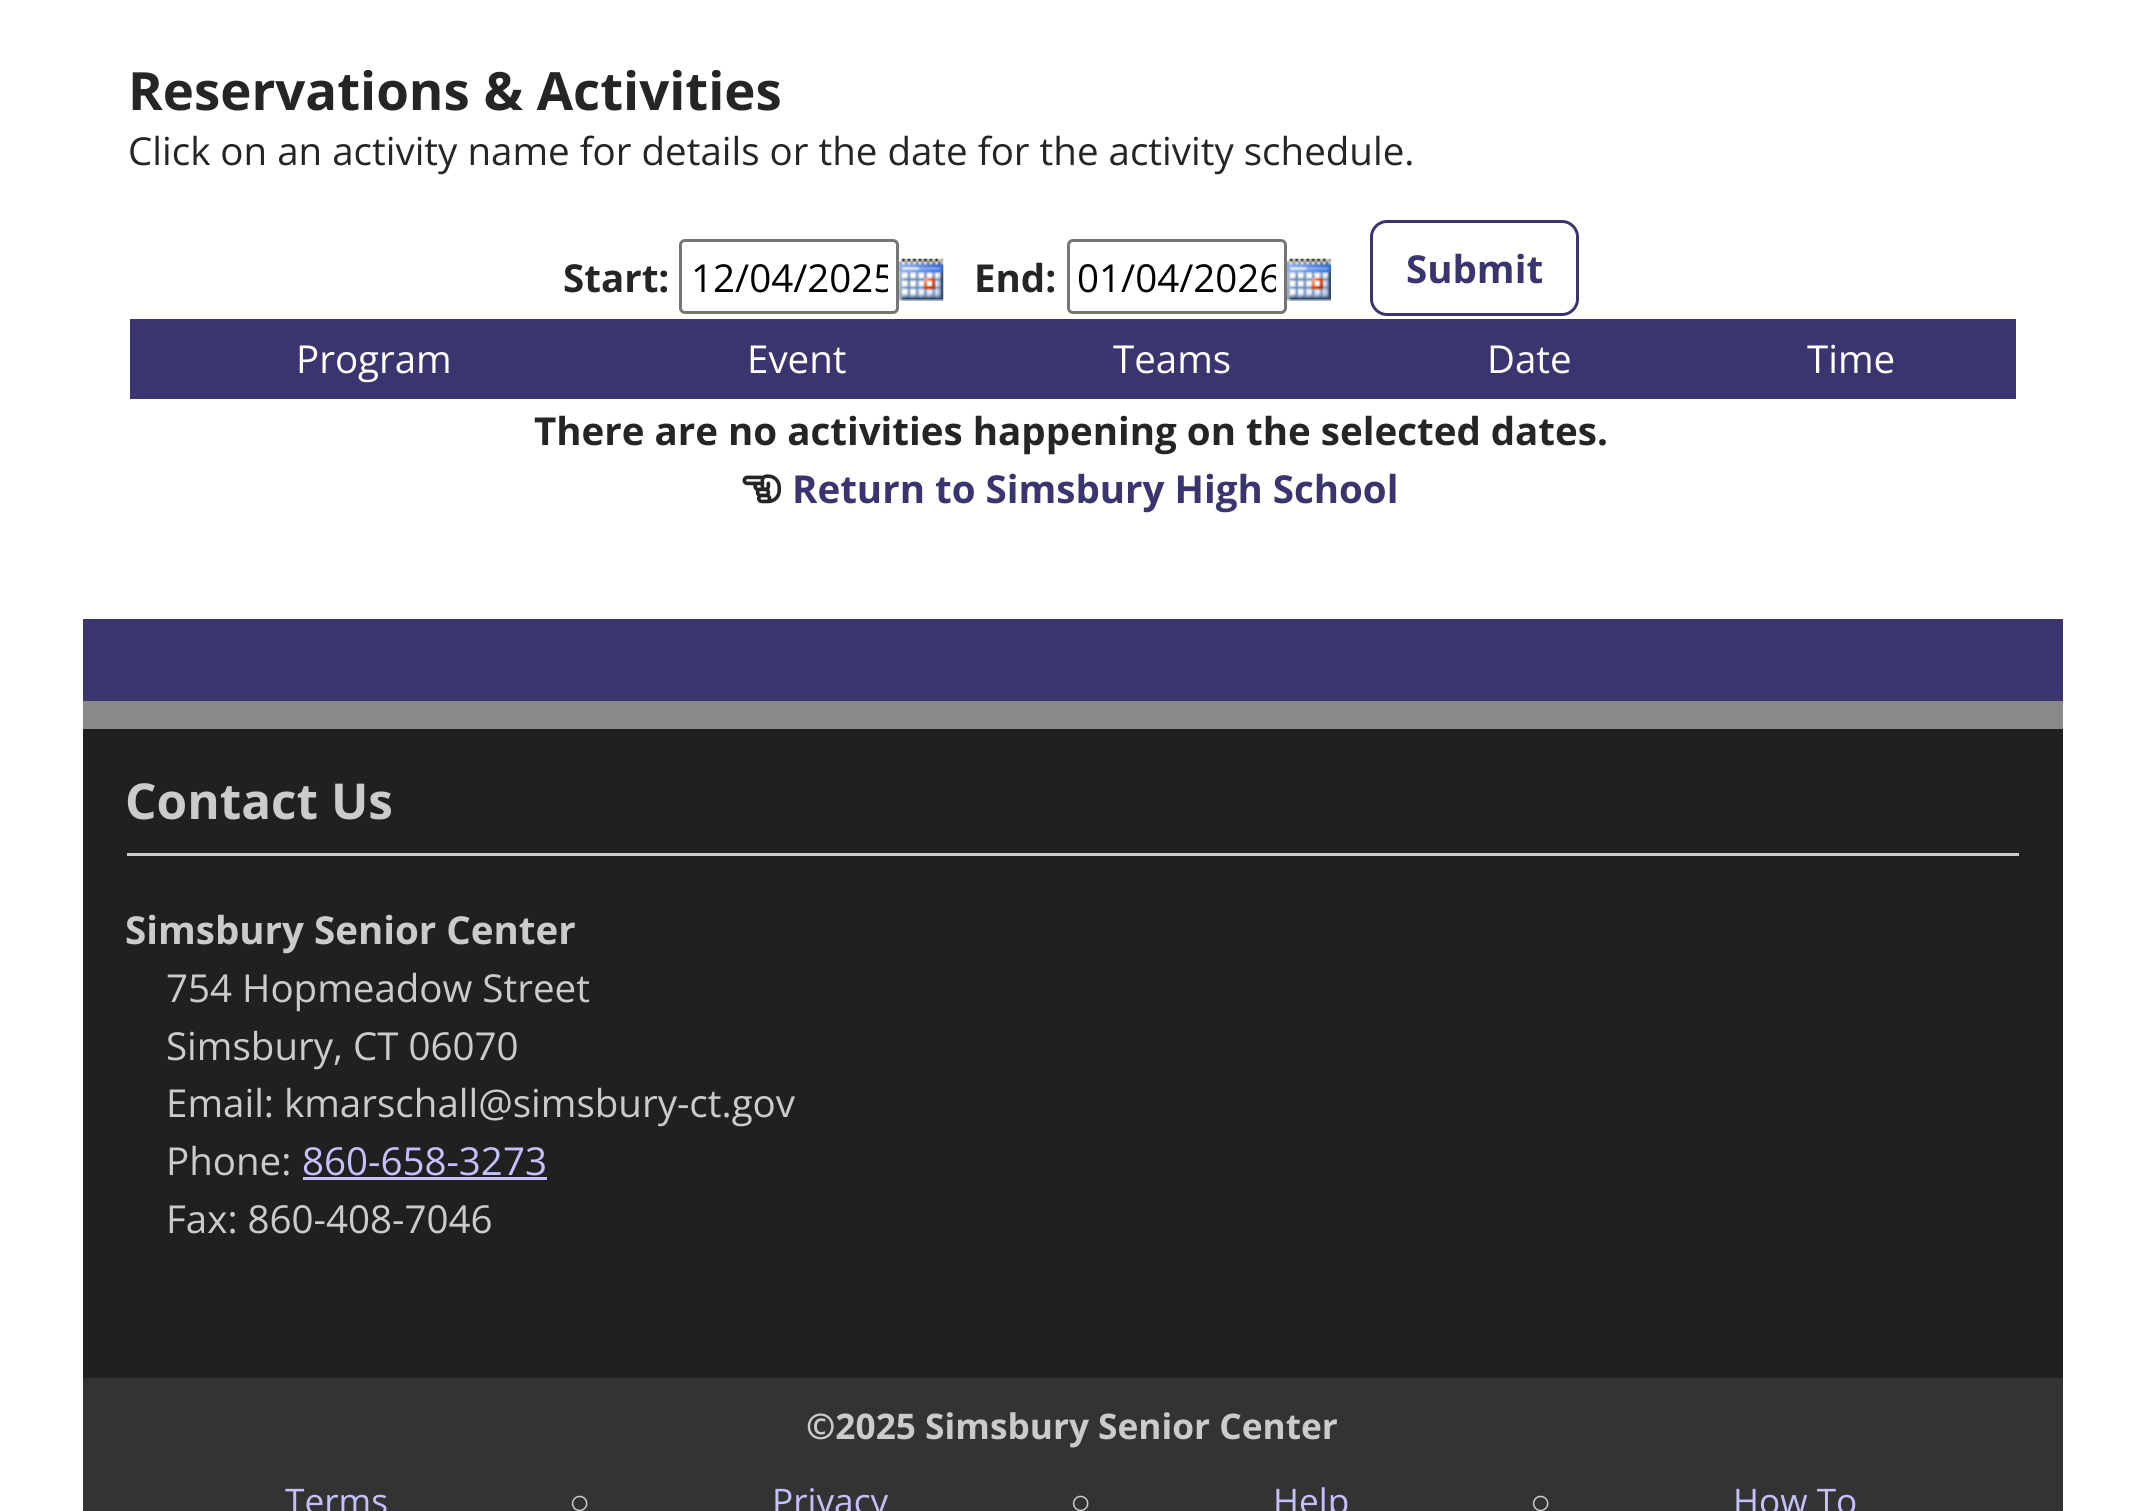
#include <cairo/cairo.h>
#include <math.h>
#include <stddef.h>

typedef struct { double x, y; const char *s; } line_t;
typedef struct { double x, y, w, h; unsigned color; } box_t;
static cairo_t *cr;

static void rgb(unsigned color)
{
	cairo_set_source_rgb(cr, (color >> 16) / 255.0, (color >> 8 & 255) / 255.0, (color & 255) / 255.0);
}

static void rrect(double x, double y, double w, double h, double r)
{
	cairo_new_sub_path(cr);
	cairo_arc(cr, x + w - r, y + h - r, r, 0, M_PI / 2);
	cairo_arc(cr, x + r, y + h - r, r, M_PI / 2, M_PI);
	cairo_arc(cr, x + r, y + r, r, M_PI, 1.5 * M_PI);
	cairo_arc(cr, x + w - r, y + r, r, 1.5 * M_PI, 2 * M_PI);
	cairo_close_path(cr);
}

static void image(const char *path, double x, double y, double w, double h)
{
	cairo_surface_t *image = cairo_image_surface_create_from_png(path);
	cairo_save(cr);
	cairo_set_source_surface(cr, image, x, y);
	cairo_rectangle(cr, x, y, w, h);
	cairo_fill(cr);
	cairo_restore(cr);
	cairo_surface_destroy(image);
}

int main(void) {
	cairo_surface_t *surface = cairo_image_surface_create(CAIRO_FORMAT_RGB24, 2141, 1511);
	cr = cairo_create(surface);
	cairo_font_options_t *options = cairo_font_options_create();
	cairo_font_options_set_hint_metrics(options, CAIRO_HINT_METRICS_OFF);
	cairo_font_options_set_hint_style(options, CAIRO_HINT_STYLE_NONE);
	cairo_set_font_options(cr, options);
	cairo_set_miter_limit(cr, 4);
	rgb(0xffffff);
	cairo_paint(cr);
	rrect(680.5, 240.5, 217, 72, 4.5);
	rgb(0x767676);
	cairo_set_line_width(cr, 3);
	cairo_stroke(cr);
	image("img/1.png", 899, 258, 45, 43);
	rrect(1068.5, 240.5, 217, 72, 4.5);
	cairo_stroke(cr);
	image("img/2.png", 1287, 258, 44, 43);
	rrect(1371.5, 221.5, 206, 93, 15.5);
	rgb(0x3b356f);
	cairo_stroke(cr);
	cairo_rectangle(cr, 130, 319, 1886, 80);
	cairo_fill(cr);
	image("img/3.png", 742, 474, 39, 30);
	{
		static const box_t items[] = {
			{83, 619, 1980, 82, 0x3b356f},
			{83, 729, 1980, 649, 0x202020},
			{83, 701, 1980, 28, 0x898989},
			{127, 853, 1892, 3, 0xcbcbcb},
			{303, 1177, 244, 3, 0xc4c0fb},
			{83, 1378, 1980, 133, 0x333333},
		};
		for (size_t i = 0; i < sizeof items / sizeof *items; i++) {
			rgb(items[i].color);
			cairo_rectangle(cr, items[i].x, items[i].y, items[i].w, items[i].h);
			cairo_fill(cr);
		}
	}
	cairo_select_font_face(cr, "Open Sans", CAIRO_FONT_SLANT_NORMAL, CAIRO_FONT_WEIGHT_BOLD);
	cairo_set_font_size(cr, 52.75);
	rgb(0x252525);
	cairo_move_to(cr, 128, 110);
	cairo_show_text(cr, "Reservations & Activities");
	cairo_select_font_face(cr, "Open Sans", CAIRO_FONT_SLANT_NORMAL, CAIRO_FONT_WEIGHT_NORMAL);
	cairo_set_font_size(cr, 38.5);
	cairo_move_to(cr, 128, 165);
	cairo_show_text(cr, "Click on an activity name for details or the date for the activity schedule.");
	cairo_select_font_face(cr, "Open Sans", CAIRO_FONT_SLANT_NORMAL, CAIRO_FONT_WEIGHT_BOLD);
	cairo_move_to(cr, 563, 292);
	cairo_show_text(cr, "Start:");
	cairo_save(cr);
	cairo_rectangle(cr, 690, 248, 198, 57);
	cairo_clip(cr);
	cairo_select_font_face(cr, "Open Sans", CAIRO_FONT_SLANT_NORMAL, CAIRO_FONT_WEIGHT_NORMAL);
	rgb(0x000000);
	cairo_move_to(cr, 691, 292);
	cairo_show_text(cr, "12/04/2025");
	cairo_restore(cr);
	cairo_move_to(cr, 974, 292);
	cairo_show_text(cr, "End:");
	cairo_save(cr);
	cairo_rectangle(cr, 1078, 248, 198, 57);
	cairo_clip(cr);
	cairo_select_font_face(cr, "Open Sans", CAIRO_FONT_SLANT_NORMAL, CAIRO_FONT_WEIGHT_NORMAL);
	rgb(0x000000);
	cairo_move_to(cr, 1077, 292);
	cairo_show_text(cr, "01/04/2026");
	cairo_restore(cr);
	rgb(0x3b356f);
	cairo_move_to(cr, 1406, 283);
	cairo_show_text(cr, "Submit");
	cairo_select_font_face(cr, "Open Sans", CAIRO_FONT_SLANT_NORMAL, CAIRO_FONT_WEIGHT_NORMAL);
	rgb(0xffffff);
	{
		static const line_t items[] = {
			{296, 373, "Program"},
			{747, 373, "Event"},
			{1113, 373, "Teams"},
			{1487, 373, "Date"},
			{1807, 373, "Time"},
		};
		for (size_t i = 0; i < sizeof items / sizeof *items; i++) {
			cairo_move_to(cr, items[i].x, items[i].y);
			cairo_show_text(cr, items[i].s);
		}
	}
	cairo_select_font_face(cr, "Open Sans", CAIRO_FONT_SLANT_NORMAL, CAIRO_FONT_WEIGHT_BOLD);
	rgb(0x252525);
	cairo_move_to(cr, 534, 445);
	cairo_show_text(cr, "There are no activities happening on the selected dates.");
	rgb(0x3b356f);
	cairo_move_to(cr, 792, 503);
	cairo_show_text(cr, "Return to Simsbury High School");
	cairo_set_font_size(cr, 49.5);
	rgb(0xcbcbcb);
	cairo_move_to(cr, 125, 819);
	cairo_show_text(cr, "Contact Us");
	cairo_set_font_size(cr, 38.5);
	cairo_move_to(cr, 125, 944);
	cairo_show_text(cr, "Simsbury Senior Center");
	cairo_select_font_face(cr, "Open Sans", CAIRO_FONT_SLANT_NORMAL, CAIRO_FONT_WEIGHT_NORMAL);
	{
		static const line_t items[] = {
			{166, 1002, "754 Hopmeadow Street"},
			{166, 1060, "Simsbury, CT 06070"},
			{166, 1117, "Email: kmarschall@simsbury-ct.gov"},
			{166, 1175, "Phone:"},
		};
		for (size_t i = 0; i < sizeof items / sizeof *items; i++) {
			cairo_move_to(cr, items[i].x, items[i].y);
			cairo_show_text(cr, items[i].s);
		}
	}
	rgb(0xc4c0fb);
	cairo_move_to(cr, 302, 1175);
	cairo_show_text(cr, "860-658-3273");
	rgb(0xcbcbcb);
	cairo_move_to(cr, 166, 1233);
	cairo_show_text(cr, "Fax: 860-408-7046");
	cairo_select_font_face(cr, "Open Sans", CAIRO_FONT_SLANT_NORMAL, CAIRO_FONT_WEIGHT_BOLD);
	cairo_set_font_size(cr, 35.25);
	cairo_move_to(cr, 806, 1439);
	cairo_show_text(cr, "©2025 Simsbury Senior Center");
	cairo_select_font_face(cr, "Open Sans", CAIRO_FONT_SLANT_NORMAL, CAIRO_FONT_WEIGHT_NORMAL);
	rgb(0xc4c0fb);
	cairo_move_to(cr, 285, 1514);
	cairo_show_text(cr, "Terms");
	cairo_select_font_face(cr, "Liberation Serif", CAIRO_FONT_SLANT_NORMAL, CAIRO_FONT_WEIGHT_NORMAL);
	rgb(0xcbcbcb);
	cairo_move_to(cr, 569, 1514);
	cairo_show_text(cr, "○");
	cairo_select_font_face(cr, "Open Sans", CAIRO_FONT_SLANT_NORMAL, CAIRO_FONT_WEIGHT_NORMAL);
	rgb(0xc4c0fb);
	cairo_move_to(cr, 772, 1514);
	cairo_show_text(cr, "Privacy");
	cairo_select_font_face(cr, "Liberation Serif", CAIRO_FONT_SLANT_NORMAL, CAIRO_FONT_WEIGHT_NORMAL);
	rgb(0xcbcbcb);
	cairo_move_to(cr, 1070, 1514);
	cairo_show_text(cr, "○");
	cairo_select_font_face(cr, "Open Sans", CAIRO_FONT_SLANT_NORMAL, CAIRO_FONT_WEIGHT_NORMAL);
	rgb(0xc4c0fb);
	cairo_move_to(cr, 1273, 1514);
	cairo_show_text(cr, "Help");
	cairo_select_font_face(cr, "Liberation Serif", CAIRO_FONT_SLANT_NORMAL, CAIRO_FONT_WEIGHT_NORMAL);
	rgb(0xcbcbcb);
	cairo_move_to(cr, 1530, 1514);
	cairo_show_text(cr, "○");
	cairo_select_font_face(cr, "Open Sans", CAIRO_FONT_SLANT_NORMAL, CAIRO_FONT_WEIGHT_NORMAL);
	rgb(0xc4c0fb);
	cairo_move_to(cr, 1733, 1514);
	cairo_show_text(cr, "How To");
	cairo_surface_write_to_png(surface, "page.png");
	cairo_font_options_destroy(options);
	cairo_destroy(cr);
	cairo_surface_destroy(surface);
	return 0;
}
